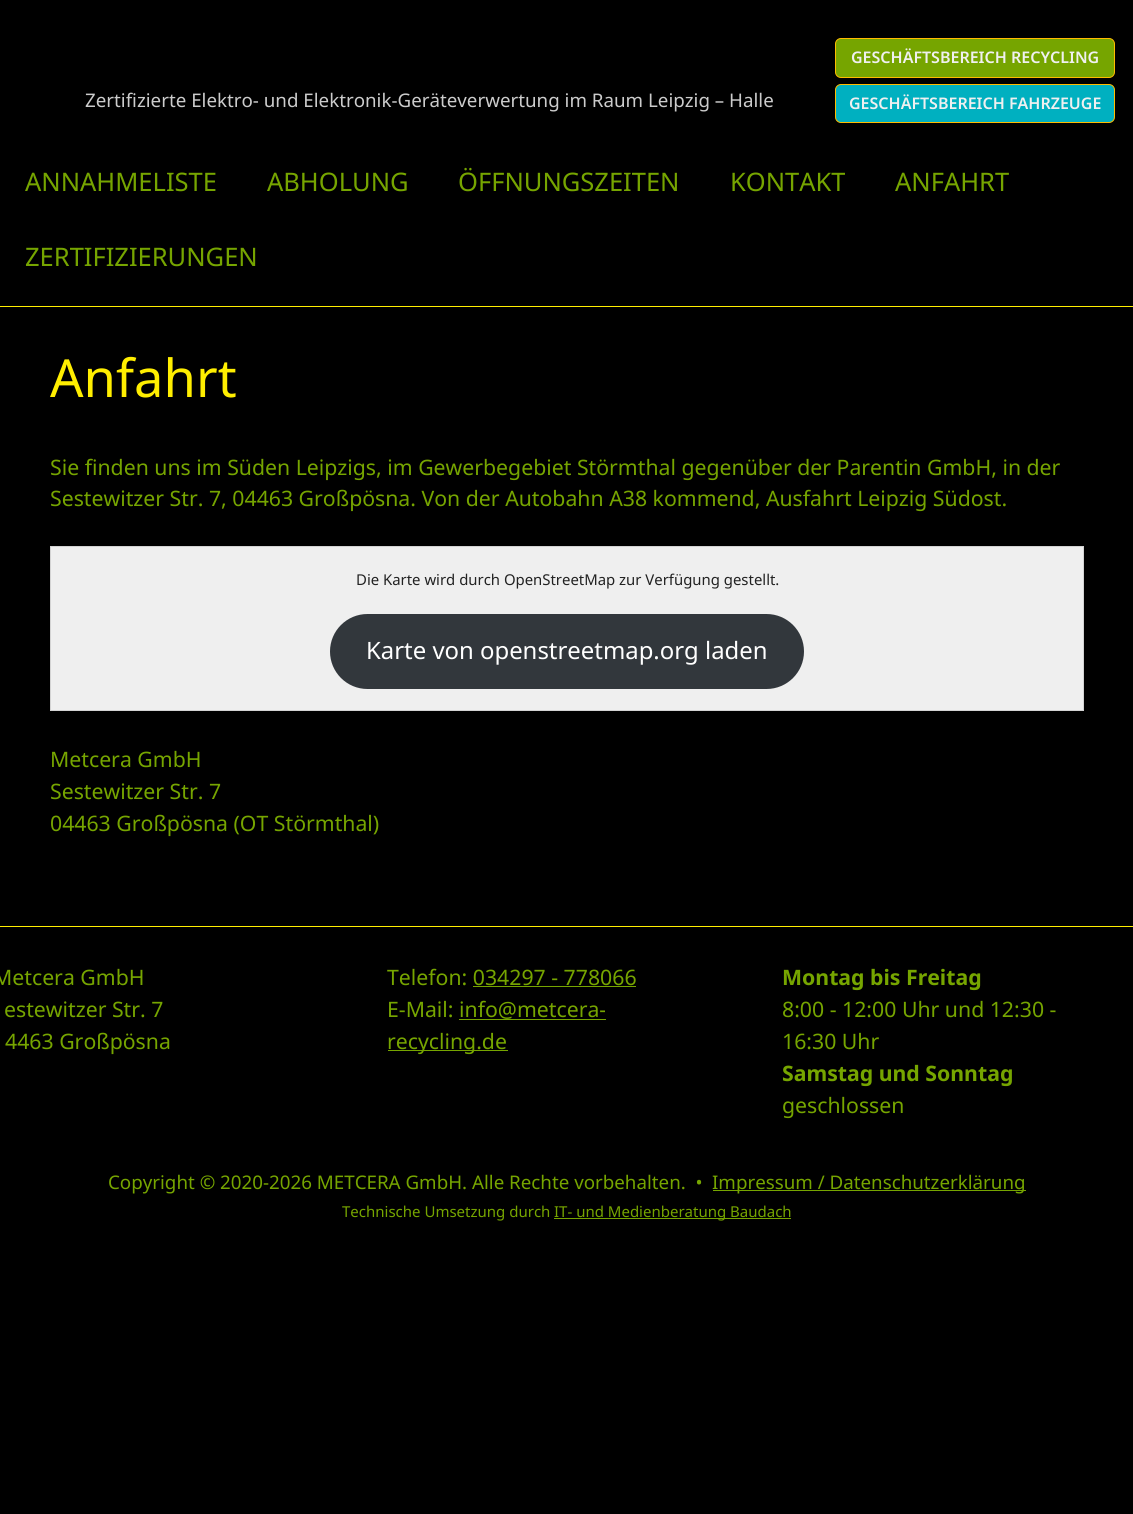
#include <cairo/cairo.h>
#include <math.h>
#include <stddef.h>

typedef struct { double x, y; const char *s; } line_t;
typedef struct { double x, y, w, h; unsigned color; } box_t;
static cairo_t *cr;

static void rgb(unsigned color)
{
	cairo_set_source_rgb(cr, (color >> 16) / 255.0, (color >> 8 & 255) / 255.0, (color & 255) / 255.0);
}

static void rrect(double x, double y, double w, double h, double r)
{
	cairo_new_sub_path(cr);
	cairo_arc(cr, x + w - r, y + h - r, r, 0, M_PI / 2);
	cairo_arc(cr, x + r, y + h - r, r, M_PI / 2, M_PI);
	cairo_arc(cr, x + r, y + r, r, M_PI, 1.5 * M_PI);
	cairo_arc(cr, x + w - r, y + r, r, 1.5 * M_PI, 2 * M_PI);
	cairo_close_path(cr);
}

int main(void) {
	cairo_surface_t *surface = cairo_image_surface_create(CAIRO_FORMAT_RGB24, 1133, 1514);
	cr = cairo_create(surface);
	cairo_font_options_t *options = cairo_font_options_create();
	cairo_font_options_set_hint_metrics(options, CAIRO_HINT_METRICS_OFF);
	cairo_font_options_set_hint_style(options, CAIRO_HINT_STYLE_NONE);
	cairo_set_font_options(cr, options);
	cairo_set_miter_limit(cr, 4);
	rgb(0x000000);
	cairo_paint(cr);
	rgb(0x76a500);
	rrect(835.5, 38.5, 279, 39, 5.5);
	cairo_fill_preserve(cr);
	rgb(0xffbb00);
	cairo_set_line_width(cr, 1);
	cairo_stroke(cr);
	rgb(0x00b0c0);
	rrect(835.5, 84.5, 279, 38, 5.5);
	cairo_fill_preserve(cr);
	rgb(0xffbb00);
	cairo_stroke(cr);
	rgb(0xffee00);
	cairo_rectangle(cr, 0, 306, 1133, 1);
	cairo_fill(cr);
	rgb(0xefefef);
	cairo_rectangle(cr, 50.5, 546.5, 1033, 164);
	cairo_fill_preserve(cr);
	rgb(0xd3d3d3);
	cairo_stroke(cr);
	rgb(0x32373c);
	rrect(330, 614, 474, 75, 37.5);
	cairo_fill(cr);
	{
		static const box_t items[] = {
			{0, 926, 1133, 1, 0xffee00},
			{473, 986, 163, 1, 0x76a500},
			{459, 1019, 147, 1, 0x76a500},
			{388, 1050, 120, 1, 0x76a500},
			{713, 1190, 313, 1, 0x76a500},
			{554, 1218, 237, 1, 0x76a500},
		};
		for (size_t i = 0; i < sizeof items / sizeof *items; i++) {
			rgb(items[i].color);
			cairo_rectangle(cr, items[i].x, items[i].y, items[i].w, items[i].h);
			cairo_fill(cr);
		}
	}
	cairo_select_font_face(cr, "Noto Sans", CAIRO_FONT_SLANT_NORMAL, CAIRO_FONT_WEIGHT_NORMAL);
	cairo_set_font_size(cr, 18.75);
	rgb(0xcccccc);
	cairo_move_to(cr, 85, 107);
	cairo_show_text(cr, "Zertifizierte Elektro- und Elektronik-Geräteverwertung im Raum Leipzig – Halle");
	cairo_select_font_face(cr, "Noto Sans SemiBold", CAIRO_FONT_SLANT_NORMAL, CAIRO_FONT_WEIGHT_NORMAL);
	cairo_set_font_size(cr, 16);
	rgb(0xf0f0f0);
	cairo_move_to(cr, 851, 63);
	cairo_show_text(cr, "GESCHÄFTSBEREICH RECYCLING");
	cairo_move_to(cr, 849, 109);
	cairo_show_text(cr, "GESCHÄFTSBEREICH FAHRZEUGE");
	cairo_select_font_face(cr, "Noto Sans", CAIRO_FONT_SLANT_NORMAL, CAIRO_FONT_WEIGHT_NORMAL);
	cairo_set_font_size(cr, 25.5);
	rgb(0x76a500);
	{
		static const line_t items[] = {
			{25, 191, "ANNAHMELISTE"},
			{267, 191, "ABHOLUNG"},
			{458, 191, "ÖFFNUNGSZEITEN"},
			{730, 191, "KONTAKT"},
			{895, 191, "ANFAHRT"},
			{25, 266, "ZERTIFIZIERUNGEN"},
		};
		for (size_t i = 0; i < sizeof items / sizeof *items; i++) {
			cairo_move_to(cr, items[i].x, items[i].y);
			cairo_show_text(cr, items[i].s);
		}
	}
	cairo_set_font_size(cr, 52.5);
	rgb(0xffee00);
	cairo_move_to(cr, 50, 397);
	cairo_show_text(cr, "Anfahrt");
	cairo_set_font_size(cr, 21.25);
	rgb(0x76a500);
	cairo_move_to(cr, 50, 475);
	cairo_show_text(cr, "Sie finden uns im Süden Leipzigs, im Gewerbegebiet Störmthal gegenüber der Parentin GmbH, in der");
	cairo_move_to(cr, 50, 506);
	cairo_show_text(cr, "Sestewitzer Str. 7, 04463 Großpösna. Von der Autobahn A38 kommend, Ausfahrt Leipzig Südost.");
	cairo_set_font_size(cr, 14.9);
	rgb(0x222222);
	cairo_move_to(cr, 356, 585);
	cairo_show_text(cr, "Die Karte wird durch OpenStreetMap zur Verfügung gestellt.");
	cairo_set_font_size(cr, 23.9);
	rgb(0xffffff);
	cairo_move_to(cr, 366, 659);
	cairo_show_text(cr, "Karte von openstreetmap.org laden");
	cairo_set_font_size(cr, 21.25);
	rgb(0x76a500);
	{
		static const line_t items[] = {
			{50, 767, "Metcera GmbH"},
			{50, 799, "Sestewitzer Str. 7"},
			{50, 831, "04463 Großpösna (OT Störmthal)"},
			{-7, 985, "Metcera GmbH"},
			{4, 1017, "estewitzer Str. 7"},
			{5, 1049, "4463 Großpösna"},
			{387, 985, "Telefon: 034297 - 778066"},
			{387, 1017, "E-Mail: info@metcera-"},
			{387, 1049, "recycling.de"},
		};
		for (size_t i = 0; i < sizeof items / sizeof *items; i++) {
			cairo_move_to(cr, items[i].x, items[i].y);
			cairo_show_text(cr, items[i].s);
		}
	}
	cairo_select_font_face(cr, "Noto Sans", CAIRO_FONT_SLANT_NORMAL, CAIRO_FONT_WEIGHT_BOLD);
	cairo_move_to(cr, 782, 985);
	cairo_show_text(cr, "Montag bis Freitag");
	cairo_select_font_face(cr, "Noto Sans", CAIRO_FONT_SLANT_NORMAL, CAIRO_FONT_WEIGHT_NORMAL);
	cairo_move_to(cr, 782, 1017);
	cairo_show_text(cr, "8:00 - 12:00 Uhr und 12:30 -");
	cairo_move_to(cr, 782, 1049);
	cairo_show_text(cr, "16:30 Uhr");
	cairo_select_font_face(cr, "Noto Sans", CAIRO_FONT_SLANT_NORMAL, CAIRO_FONT_WEIGHT_BOLD);
	cairo_move_to(cr, 782, 1081);
	cairo_show_text(cr, "Samstag und Sonntag");
	cairo_select_font_face(cr, "Noto Sans", CAIRO_FONT_SLANT_NORMAL, CAIRO_FONT_WEIGHT_NORMAL);
	cairo_move_to(cr, 782, 1113);
	cairo_show_text(cr, "geschlossen");
	cairo_set_font_size(cr, 18.75);
	cairo_move_to(cr, 108, 1189);
	cairo_show_text(cr, "Copyright © 2020-2026 METCERA GmbH. Alle Rechte vorbehalten.  •");
	cairo_move_to(cr, 712, 1189);
	cairo_show_text(cr, "Impressum / Datenschutzerklärung");
	cairo_set_font_size(cr, 15);
	cairo_move_to(cr, 342, 1217);
	cairo_show_text(cr, "Technische Umsetzung durch");
	cairo_move_to(cr, 554, 1217);
	cairo_show_text(cr, "IT- und Medienberatung Baudach");
	cairo_surface_write_to_png(surface, "page.png");
	cairo_font_options_destroy(options);
	cairo_destroy(cr);
	cairo_surface_destroy(surface);
	return 0;
}
